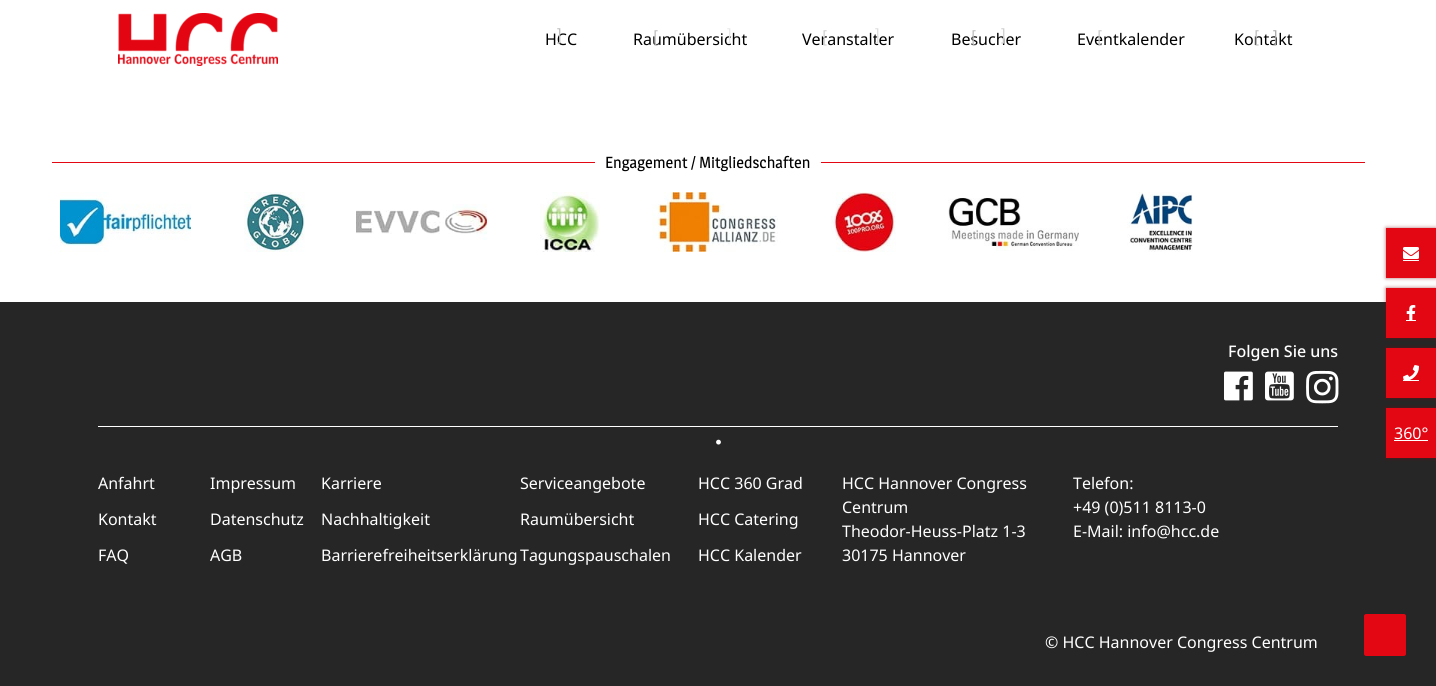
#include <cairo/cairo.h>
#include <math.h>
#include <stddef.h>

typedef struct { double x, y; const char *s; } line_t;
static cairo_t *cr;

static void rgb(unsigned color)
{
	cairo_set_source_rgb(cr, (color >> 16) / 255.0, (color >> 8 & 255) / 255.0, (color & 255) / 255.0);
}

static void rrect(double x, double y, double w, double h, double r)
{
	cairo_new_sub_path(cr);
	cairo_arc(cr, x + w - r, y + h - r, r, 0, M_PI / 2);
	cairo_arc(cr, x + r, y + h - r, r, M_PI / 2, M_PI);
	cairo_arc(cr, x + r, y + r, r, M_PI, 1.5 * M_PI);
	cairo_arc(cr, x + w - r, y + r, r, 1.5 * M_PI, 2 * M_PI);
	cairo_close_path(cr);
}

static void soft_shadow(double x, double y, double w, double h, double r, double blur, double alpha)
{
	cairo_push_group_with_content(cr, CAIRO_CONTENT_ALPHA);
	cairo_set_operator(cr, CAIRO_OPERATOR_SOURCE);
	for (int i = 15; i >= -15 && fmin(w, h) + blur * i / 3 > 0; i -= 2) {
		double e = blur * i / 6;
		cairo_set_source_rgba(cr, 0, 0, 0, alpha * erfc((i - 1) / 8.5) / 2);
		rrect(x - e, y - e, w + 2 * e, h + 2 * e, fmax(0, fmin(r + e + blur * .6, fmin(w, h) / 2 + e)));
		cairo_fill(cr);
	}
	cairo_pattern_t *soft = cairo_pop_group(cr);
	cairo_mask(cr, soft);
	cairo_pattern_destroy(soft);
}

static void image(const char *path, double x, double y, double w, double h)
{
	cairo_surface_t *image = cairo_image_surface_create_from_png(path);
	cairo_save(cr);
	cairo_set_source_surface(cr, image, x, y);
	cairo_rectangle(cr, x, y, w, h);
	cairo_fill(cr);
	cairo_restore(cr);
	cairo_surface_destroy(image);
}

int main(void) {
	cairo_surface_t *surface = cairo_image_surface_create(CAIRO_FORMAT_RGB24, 1436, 686);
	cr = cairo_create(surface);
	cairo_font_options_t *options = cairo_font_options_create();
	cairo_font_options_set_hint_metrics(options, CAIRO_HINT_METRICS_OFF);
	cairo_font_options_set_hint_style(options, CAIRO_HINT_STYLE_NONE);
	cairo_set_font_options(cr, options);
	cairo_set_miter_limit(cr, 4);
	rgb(0xffffff);
	cairo_paint(cr);
	image("img/1.png", 118, 13, 160, 53);
	rgb(0xe30613);
	cairo_rectangle(cr, 52, 162, 543, 1);
	cairo_fill(cr);
	cairo_rectangle(cr, 821, 162, 544, 1);
	cairo_fill(cr);
	image("img/2.png", 60, 192, 131, 60);
	image("img/3.png", 244, 192, 61, 60);
	image("img/4.png", 356, 204, 131, 36);
	image("img/5.png", 540, 192, 60, 60);
	image("img/6.png", 652, 192, 126, 60);
	image("img/7.png", 831, 192, 65, 60);
	image("img/8.png", 948, 198, 131, 53);
	image("img/9.png", 1127, 192, 66, 60);
	rgb(0x262626);
	cairo_rectangle(cr, 0, 302, 1436, 384);
	cairo_fill(cr);
	image("img/10.png", 1224, 371, 29, 30);
	image("img/11.png", 1265, 371, 29, 30);
	image("img/12.png", 1306, 370, 33, 34);
	rgb(0xffffff);
	cairo_rectangle(cr, 98, 426, 1240, 1);
	cairo_fill(cr);
	image("img/13.png", 716, 439, 5, 6);
	rgb(0x80030b);
	soft_shadow(1386, 228, 50, 50, 0, 2, 0.6);
	rgb(0xe30613);
	cairo_rectangle(cr, 1386, 228, 50, 50);
	cairo_fill(cr);
	image("img/14.png", 1403, 247, 16, 12);
	rgb(0xffffff);
	cairo_rectangle(cr, 1403, 260, 16, 1);
	cairo_fill(cr);
	rgb(0x80030b);
	soft_shadow(1386, 288, 50, 50, 0, 2, 0.6);
	rgb(0xe30613);
	cairo_rectangle(cr, 1386, 288, 50, 50);
	cairo_fill(cr);
	image("img/15.png", 1406, 305, 10, 15);
	rgb(0xffffff);
	cairo_rectangle(cr, 1406, 320, 10, 1);
	cairo_fill(cr);
	rgb(0x80030b);
	soft_shadow(1386, 348, 50, 50, 0, 2, 0.6);
	rgb(0xe30613);
	cairo_rectangle(cr, 1386, 348, 50, 50);
	cairo_fill(cr);
	image("img/16.png", 1403, 365, 16, 15);
	rgb(0xffffff);
	cairo_rectangle(cr, 1403, 380, 16, 1);
	cairo_fill(cr);
	rgb(0x80030b);
	soft_shadow(1386, 408, 50, 50, 0, 2, 0.6);
	rgb(0xe30613);
	cairo_rectangle(cr, 1386, 408, 50, 50);
	cairo_fill(cr);
	rgb(0xffffff);
	cairo_rectangle(cr, 1394, 440, 34, 1);
	cairo_fill(cr);
	rgb(0xe30613);
	cairo_new_path(cr);
	cairo_move_to(cr, 1404, 656);
	cairo_line_to(cr, 1366, 656);
	cairo_curve_to(cr, 1365, 656, 1364, 655, 1364, 654);
	cairo_line_to(cr, 1364, 616);
	cairo_curve_to(cr, 1364, 615, 1365, 614, 1366, 614);
	cairo_line_to(cr, 1404, 614);
	cairo_curve_to(cr, 1405, 614, 1406, 615, 1406, 616);
	cairo_line_to(cr, 1406, 654);
	cairo_curve_to(cr, 1406, 655, 1405, 656, 1404, 656);
	cairo_close_path(cr);
	cairo_fill(cr);
	cairo_select_font_face(cr, "Noto Sans", CAIRO_FONT_SLANT_NORMAL, CAIRO_FONT_WEIGHT_NORMAL);
	cairo_set_font_size(cr, 16);
	rgb(0x000000);
	cairo_move_to(cr, 545, 45);
	cairo_show_text(cr, "HCC");
	cairo_select_font_face(cr, "Magra", CAIRO_FONT_SLANT_NORMAL, CAIRO_FONT_WEIGHT_NORMAL);
	rgb(0xbdbdbd);
	cairo_move_to(cr, 557, 41);
	cairo_show_text(cr, "]");
	cairo_select_font_face(cr, "Noto Sans", CAIRO_FONT_SLANT_NORMAL, CAIRO_FONT_WEIGHT_NORMAL);
	rgb(0x000000);
	cairo_move_to(cr, 633, 45);
	cairo_show_text(cr, "Raumübersicht");
	cairo_select_font_face(cr, "Magra", CAIRO_FONT_SLANT_NORMAL, CAIRO_FONT_WEIGHT_NORMAL);
	rgb(0xe8e8e8);
	cairo_move_to(cr, 727, 41);
	cairo_show_text(cr, "]");
	rgb(0xbdbdbd);
	cairo_move_to(cr, 653, 43);
	cairo_show_text(cr, "[");
	cairo_select_font_face(cr, "Noto Sans", CAIRO_FONT_SLANT_NORMAL, CAIRO_FONT_WEIGHT_NORMAL);
	rgb(0x000000);
	cairo_move_to(cr, 802, 45);
	cairo_show_text(cr, "Veranstalter");
	cairo_select_font_face(cr, "Magra", CAIRO_FONT_SLANT_NORMAL, CAIRO_FONT_WEIGHT_NORMAL);
	rgb(0xdddddd);
	cairo_move_to(cr, 875, 41);
	cairo_show_text(cr, "]");
	rgb(0xcfcfcf);
	cairo_move_to(cr, 822, 43);
	cairo_show_text(cr, "[");
	cairo_select_font_face(cr, "Noto Sans", CAIRO_FONT_SLANT_NORMAL, CAIRO_FONT_WEIGHT_NORMAL);
	rgb(0x000000);
	cairo_move_to(cr, 951, 45);
	cairo_show_text(cr, "Besucher");
	cairo_select_font_face(cr, "Magra", CAIRO_FONT_SLANT_NORMAL, CAIRO_FONT_WEIGHT_NORMAL);
	rgb(0xcfcfcf);
	cairo_move_to(cr, 1001, 41);
	cairo_show_text(cr, "]");
	rgb(0xbdbdbd);
	cairo_move_to(cr, 971, 43);
	cairo_show_text(cr, "[");
	cairo_select_font_face(cr, "Noto Sans", CAIRO_FONT_SLANT_NORMAL, CAIRO_FONT_WEIGHT_NORMAL);
	rgb(0x000000);
	cairo_move_to(cr, 1077, 45);
	cairo_show_text(cr, "Eventkalender");
	cairo_select_font_face(cr, "Magra", CAIRO_FONT_SLANT_NORMAL, CAIRO_FONT_WEIGHT_NORMAL);
	rgb(0xc9c9c9);
	cairo_move_to(cr, 1097, 43);
	cairo_show_text(cr, "[");
	cairo_select_font_face(cr, "Noto Sans", CAIRO_FONT_SLANT_NORMAL, CAIRO_FONT_WEIGHT_NORMAL);
	rgb(0x000000);
	cairo_move_to(cr, 1234, 45);
	cairo_show_text(cr, "Kontakt");
	cairo_select_font_face(cr, "Magra", CAIRO_FONT_SLANT_NORMAL, CAIRO_FONT_WEIGHT_NORMAL);
	rgb(0xa8a8a8);
	cairo_move_to(cr, 1273, 43);
	cairo_show_text(cr, "]");
	rgb(0xbdbdbd);
	cairo_move_to(cr, 1254, 43);
	cairo_show_text(cr, "[");
	rgb(0x000000);
	cairo_move_to(cr, 605, 168);
	cairo_show_text(cr, "Engagement / Mitgliedschaften");
	cairo_select_font_face(cr, "Noto Sans Medium", CAIRO_FONT_SLANT_NORMAL, CAIRO_FONT_WEIGHT_NORMAL);
	rgb(0xffffff);
	cairo_move_to(cr, 1228, 357);
	cairo_show_text(cr, "Folgen Sie uns");
	cairo_select_font_face(cr, "Noto Sans", CAIRO_FONT_SLANT_NORMAL, CAIRO_FONT_WEIGHT_NORMAL);
	{
		static const line_t items[] = {
			{98, 489, "Anfahrt"},
			{98, 525, "Kontakt"},
			{98, 561, "FAQ"},
			{210, 489, "Impressum"},
			{210, 525, "Datenschutz"},
			{210, 561, "AGB"},
			{321, 489, "Karriere"},
			{321, 525, "Nachhaltigkeit"},
			{321, 561, "Barrierefreiheitserklärung"},
			{520, 489, "Serviceangebote"},
			{520, 525, "Raumübersicht"},
			{520, 561, "Tagungspauschalen"},
			{698, 489, "HCC 360 Grad"},
			{698, 525, "HCC Catering"},
			{698, 561, "HCC Kalender"},
			{842, 489, "HCC Hannover Congress"},
			{842, 513, "Centrum"},
			{842, 537, "Theodor-Heuss-Platz 1-3"},
			{842, 561, "30175 Hannover"},
			{1073, 489, "Telefon:"},
			{1073, 513, "+49 (0)511 8113-0"},
			{1073, 537, "E-Mail: info@hcc.de"},
			{1045, 648, "© HCC Hannover Congress Centrum"},
			{1394, 439, "360°"},
		};
		for (size_t i = 0; i < sizeof items / sizeof *items; i++) {
			cairo_move_to(cr, items[i].x, items[i].y);
			cairo_show_text(cr, items[i].s);
		}
	}
	cairo_surface_write_to_png(surface, "page.png");
	cairo_font_options_destroy(options);
	cairo_destroy(cr);
	cairo_surface_destroy(surface);
	return 0;
}
